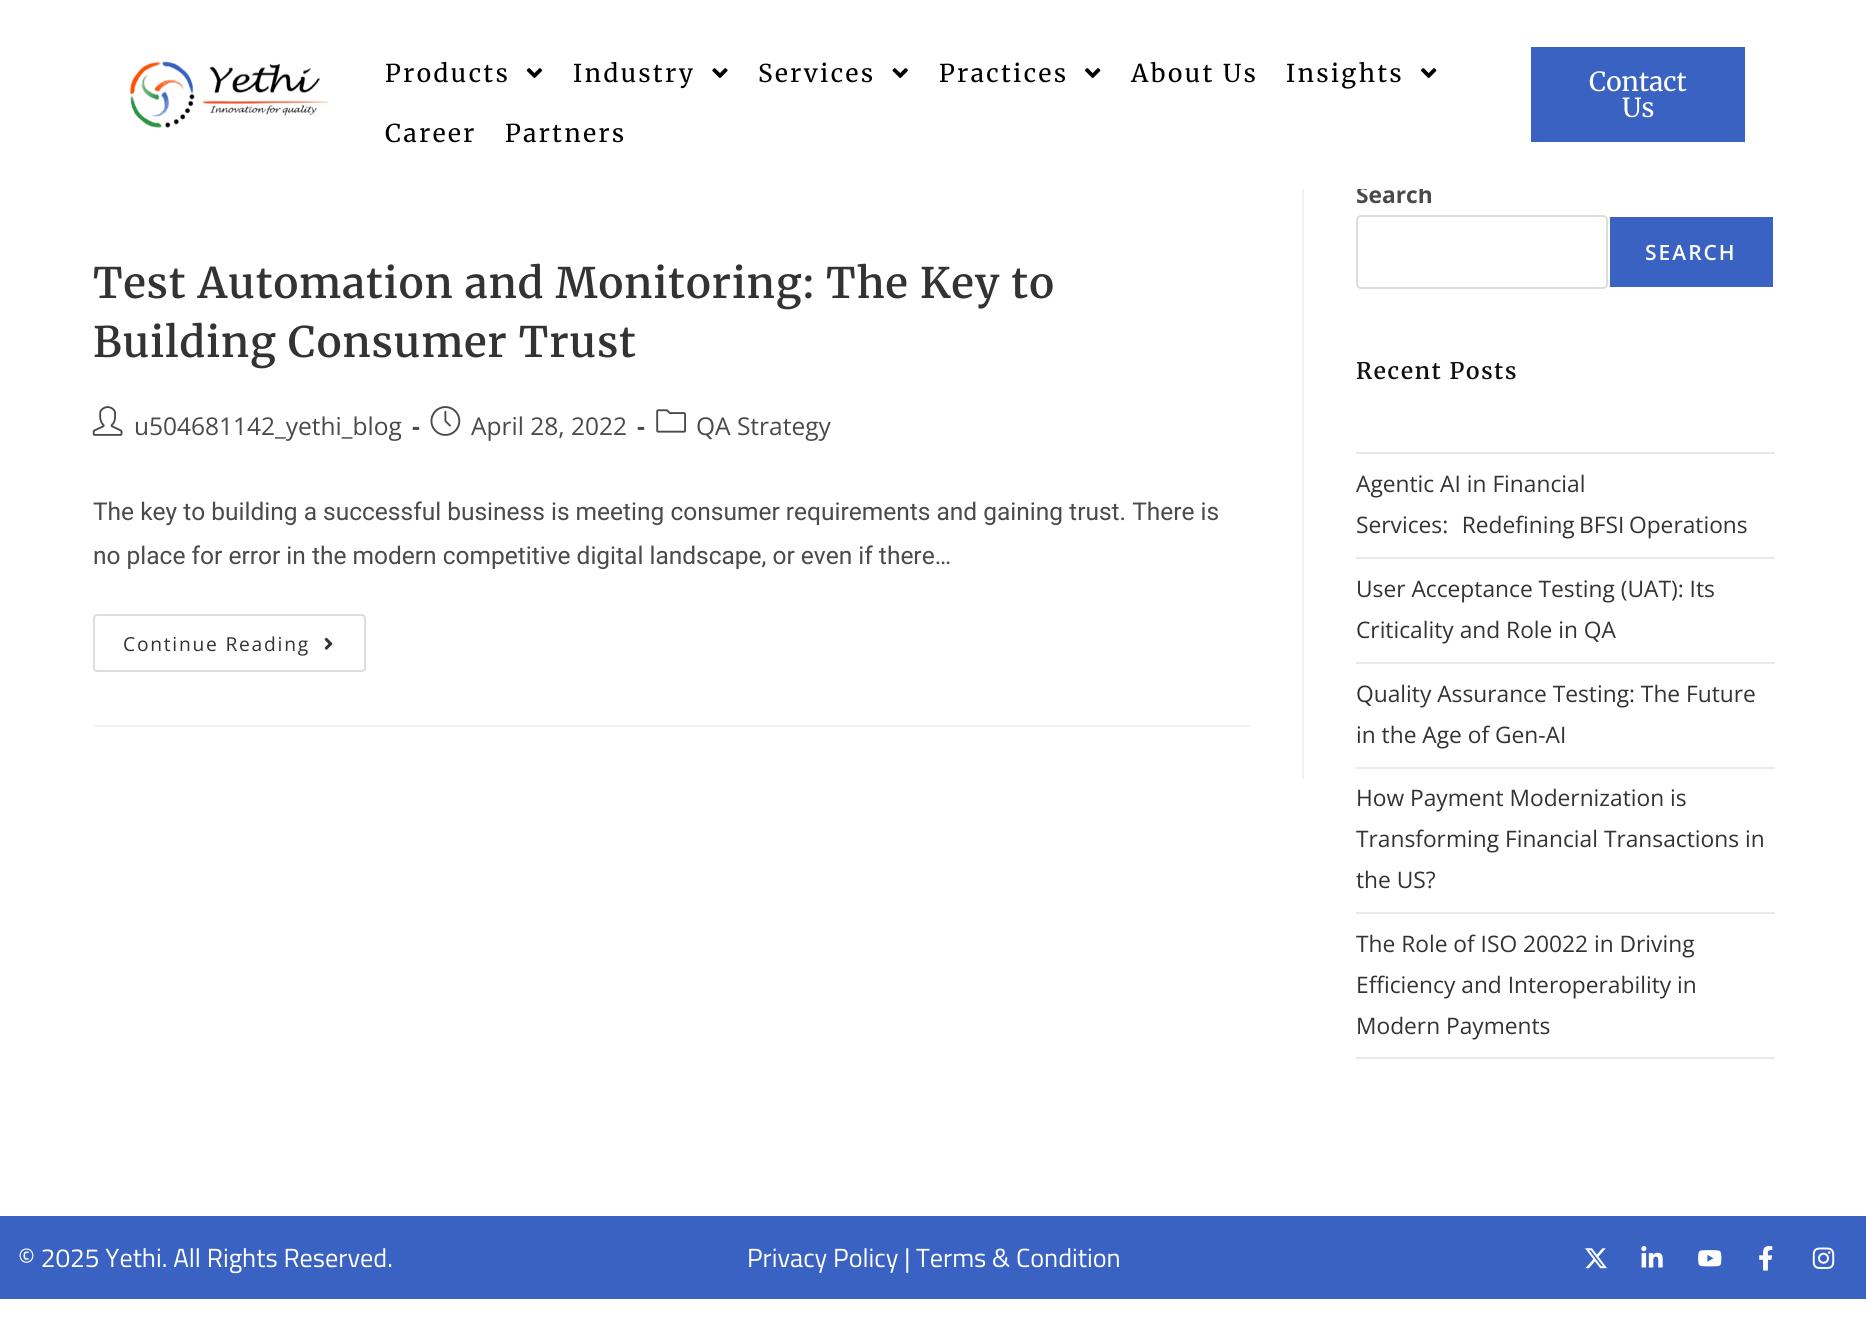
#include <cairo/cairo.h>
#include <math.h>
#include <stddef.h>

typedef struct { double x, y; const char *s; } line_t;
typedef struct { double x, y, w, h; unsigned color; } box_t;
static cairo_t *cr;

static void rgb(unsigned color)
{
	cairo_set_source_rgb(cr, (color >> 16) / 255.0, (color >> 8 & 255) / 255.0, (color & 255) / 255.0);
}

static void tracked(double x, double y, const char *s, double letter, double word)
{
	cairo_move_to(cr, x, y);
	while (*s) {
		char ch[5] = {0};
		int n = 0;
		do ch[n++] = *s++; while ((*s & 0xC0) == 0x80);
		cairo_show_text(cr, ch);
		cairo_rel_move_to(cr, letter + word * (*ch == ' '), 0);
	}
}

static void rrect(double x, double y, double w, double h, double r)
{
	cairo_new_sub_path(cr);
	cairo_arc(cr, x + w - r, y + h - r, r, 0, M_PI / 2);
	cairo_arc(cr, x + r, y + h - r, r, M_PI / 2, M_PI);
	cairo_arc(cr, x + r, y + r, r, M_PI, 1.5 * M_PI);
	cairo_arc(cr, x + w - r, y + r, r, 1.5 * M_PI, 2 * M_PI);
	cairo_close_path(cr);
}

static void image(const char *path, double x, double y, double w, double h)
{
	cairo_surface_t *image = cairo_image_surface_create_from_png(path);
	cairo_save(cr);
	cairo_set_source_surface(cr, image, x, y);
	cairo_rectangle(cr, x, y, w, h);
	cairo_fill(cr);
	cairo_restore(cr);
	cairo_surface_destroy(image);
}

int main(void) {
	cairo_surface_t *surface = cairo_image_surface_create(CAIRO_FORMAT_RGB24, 1866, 1336);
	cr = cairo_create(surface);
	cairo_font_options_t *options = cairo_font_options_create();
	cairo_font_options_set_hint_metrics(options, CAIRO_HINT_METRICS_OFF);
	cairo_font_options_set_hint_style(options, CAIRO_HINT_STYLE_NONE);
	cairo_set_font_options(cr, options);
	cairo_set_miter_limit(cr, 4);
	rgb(0xffffff);
	cairo_paint(cr);
	image("img/1.png", 130, 61, 199, 68);
	image("img/2.png", 526, 68, 17, 10);
	image("img/3.png", 712, 68, 16, 10);
	image("img/4.png", 892, 68, 16, 10);
	image("img/5.png", 1085, 68, 16, 10);
	image("img/5.png", 1421, 68, 16, 10);
	{
		static const box_t items[] = {
			{1531, 47, 214, 95, 0x3a62c2},
			{1302, 189, 2, 590, 0xf1f1f1},
			{93, 725, 1157, 2, 0xf1f1f1},
		};
		for (size_t i = 0; i < sizeof items / sizeof *items; i++) {
			rgb(items[i].color);
			cairo_rectangle(cr, items[i].x, items[i].y, items[i].w, items[i].h);
			cairo_fill(cr);
		}
	}
	image("img/6.png", 92, 406, 31, 30);
	image("img/7.png", 430, 406, 31, 30);
	image("img/8.png", 656, 409, 30, 24);
	rrect(94, 615, 271, 56, 3);
	rgb(0xdddddd);
	cairo_stroke(cr);
	image("img/9.png", 324, 637, 9, 13);
	rrect(1357, 216, 250, 72, 4);
	cairo_stroke(cr);
	{
		static const box_t items[] = {
			{1610, 217, 163, 70, 0x3a62c2},
			{1356, 452, 419, 2, 0xe9e9e9},
			{1356, 557, 419, 2, 0xe9e9e9},
			{1356, 662, 419, 2, 0xe9e9e9},
			{1356, 767, 419, 2, 0xe9e9e9},
			{1356, 912, 419, 2, 0xe9e9e9},
			{1356, 1057, 419, 2, 0xe9e9e9},
			{0, 1216, 1866, 83, 0x3a62c2},
		};
		for (size_t i = 0; i < sizeof items / sizeof *items; i++) {
			rgb(items[i].color);
			cairo_rectangle(cr, items[i].x, items[i].y, items[i].w, items[i].h);
			cairo_fill(cr);
		}
	}
	image("img/10.png", 1585, 1248, 22, 21);
	image("img/11.png", 1641, 1246, 22, 22);
	image("img/12.png", 1698, 1250, 24, 17);
	image("img/13.png", 1759, 1246, 14, 25);
	image("img/14.png", 1812, 1247, 23, 22);
	cairo_select_font_face(cr, "Merriweather", CAIRO_FONT_SLANT_NORMAL, CAIRO_FONT_WEIGHT_NORMAL);
	cairo_set_font_size(cr, 24.5);
	rgb(0x000000);
	{
		static const line_t items[] = {
			{385, 82, "Products"},
			{573, 82, "Industry"},
			{758, 82, "Services"},
			{939, 82, "Practices"},
			{1131, 82, "About Us"},
			{1286, 82, "Insights"},
			{385, 142, "Career"},
			{505, 142, "Partners"},
		};
		for (size_t i = 0; i < sizeof items / sizeof *items; i++) {
			tracked(items[i].x, items[i].y, items[i].s, 2.5, 0);
		}
	}
	cairo_set_font_size(cr, 26.25);
	rgb(0xffffff);
	cairo_move_to(cr, 1589, 91);
	cairo_show_text(cr, "Contact");
	cairo_move_to(cr, 1622, 117);
	cairo_show_text(cr, "Us");
	cairo_select_font_face(cr, "Merriweather SemiBold", CAIRO_FONT_SLANT_NORMAL, CAIRO_FONT_WEIGHT_NORMAL);
	cairo_set_font_size(cr, 42);
	rgb(0x333333);
	tracked(93, 298, "Test Automation and Monitoring: The Key to", 1.05, 0);
	tracked(93, 357, "Building Consumer Trust", 1.05, 0);
	cairo_select_font_face(cr, "Open Sans", CAIRO_FONT_SLANT_NORMAL, CAIRO_FONT_WEIGHT_NORMAL);
	cairo_set_font_size(cr, 24.5);
	rgb(0x4a4a4a);
	cairo_move_to(cr, 134, 435);
	cairo_show_text(cr, "u504681142_yethi_blog");
	cairo_select_font_face(cr, "Open Sans", CAIRO_FONT_SLANT_NORMAL, CAIRO_FONT_WEIGHT_BOLD);
	cairo_move_to(cr, 412, 435);
	cairo_show_text(cr, "-");
	cairo_select_font_face(cr, "Open Sans", CAIRO_FONT_SLANT_NORMAL, CAIRO_FONT_WEIGHT_NORMAL);
	cairo_move_to(cr, 471, 435);
	cairo_show_text(cr, "April 28, 2022");
	cairo_select_font_face(cr, "Open Sans", CAIRO_FONT_SLANT_NORMAL, CAIRO_FONT_WEIGHT_BOLD);
	cairo_move_to(cr, 637, 435);
	cairo_show_text(cr, "-");
	cairo_select_font_face(cr, "Open Sans", CAIRO_FONT_SLANT_NORMAL, CAIRO_FONT_WEIGHT_NORMAL);
	cairo_move_to(cr, 696, 435);
	cairo_show_text(cr, "QA Strategy");
	cairo_select_font_face(cr, "Roboto", CAIRO_FONT_SLANT_NORMAL, CAIRO_FONT_WEIGHT_NORMAL);
	cairo_move_to(cr, 93, 520);
	cairo_show_text(cr, "The key to building a successful business is meeting consumer requirements and gaining trust. There is");
	cairo_move_to(cr, 93, 564);
	cairo_show_text(cr, "no place for error in the modern competitive digital landscape, or even if there…");
	cairo_select_font_face(cr, "Open Sans", CAIRO_FONT_SLANT_NORMAL, CAIRO_FONT_WEIGHT_NORMAL);
	cairo_set_font_size(cr, 19.25);
	rgb(0x333333);
	tracked(123, 651, "Continue Reading", 1.75, 0);
	cairo_select_font_face(cr, "Open Sans", CAIRO_FONT_SLANT_NORMAL, CAIRO_FONT_WEIGHT_BOLD);
	cairo_set_font_size(cr, 22.75);
	rgb(0x4a4a4a);
	cairo_move_to(cr, 1356, 203);
	cairo_show_text(cr, "Search");
	rgb(0xffffff);
	cairo_rectangle(cr, 1357, 185, 66, 4);
	cairo_fill(cr);
	cairo_select_font_face(cr, "Open Sans SemiBold", CAIRO_FONT_SLANT_NORMAL, CAIRO_FONT_WEIGHT_NORMAL);
	cairo_set_font_size(cr, 21);
	tracked(1645, 260, "SEARCH", 2, 0);
	cairo_select_font_face(cr, "Merriweather SemiBold", CAIRO_FONT_SLANT_NORMAL, CAIRO_FONT_WEIGHT_NORMAL);
	cairo_set_font_size(cr, 22.75);
	rgb(0x111111);
	tracked(1356, 379, "Recent Posts", 1.75, 0);
	cairo_select_font_face(cr, "Open Sans", CAIRO_FONT_SLANT_NORMAL, CAIRO_FONT_WEIGHT_NORMAL);
	rgb(0x333333);
	{
		static const line_t items[] = {
			{1356, 492, "Agentic AI in Financial"},
			{1356, 533, "Services: Redefining"},
			{1579, 533, "BFSI"},
			{1629, 533, "Operations"},
			{1356, 597, "User Acceptance Testing (UAT): Its"},
			{1356, 638, "Criticality and Role in QA"},
			{1356, 702, "Quality Assurance Testing: The Future"},
			{1356, 743, "in the Age of Gen-AI"},
			{1356, 806, "How Payment Modernization is"},
			{1356, 847, "Transforming Financial Transactions in"},
			{1356, 888, "the US?"},
			{1356, 952, "The Role of ISO 20022 in Driving"},
			{1356, 993, "Efficiency and Interoperability in"},
			{1356, 1034, "Modern Payments"},
		};
		for (size_t i = 0; i < sizeof items / sizeof *items; i++) {
			cairo_move_to(cr, items[i].x, items[i].y);
			cairo_show_text(cr, items[i].s);
		}
	}
	cairo_select_font_face(cr, "Titillium Web", CAIRO_FONT_SLANT_NORMAL, CAIRO_FONT_WEIGHT_NORMAL);
	cairo_set_font_size(cr, 26.25);
	rgb(0xffffff);
	cairo_move_to(cr, 18, 1267);
	cairo_show_text(cr, "© 2025 Yethi. All Rights Reserved.");
	cairo_move_to(cr, 747, 1267);
	cairo_show_text(cr, "Privacy Policy | Terms & Condition");
	cairo_surface_write_to_png(surface, "page.png");
	cairo_font_options_destroy(options);
	cairo_destroy(cr);
	cairo_surface_destroy(surface);
	return 0;
}
